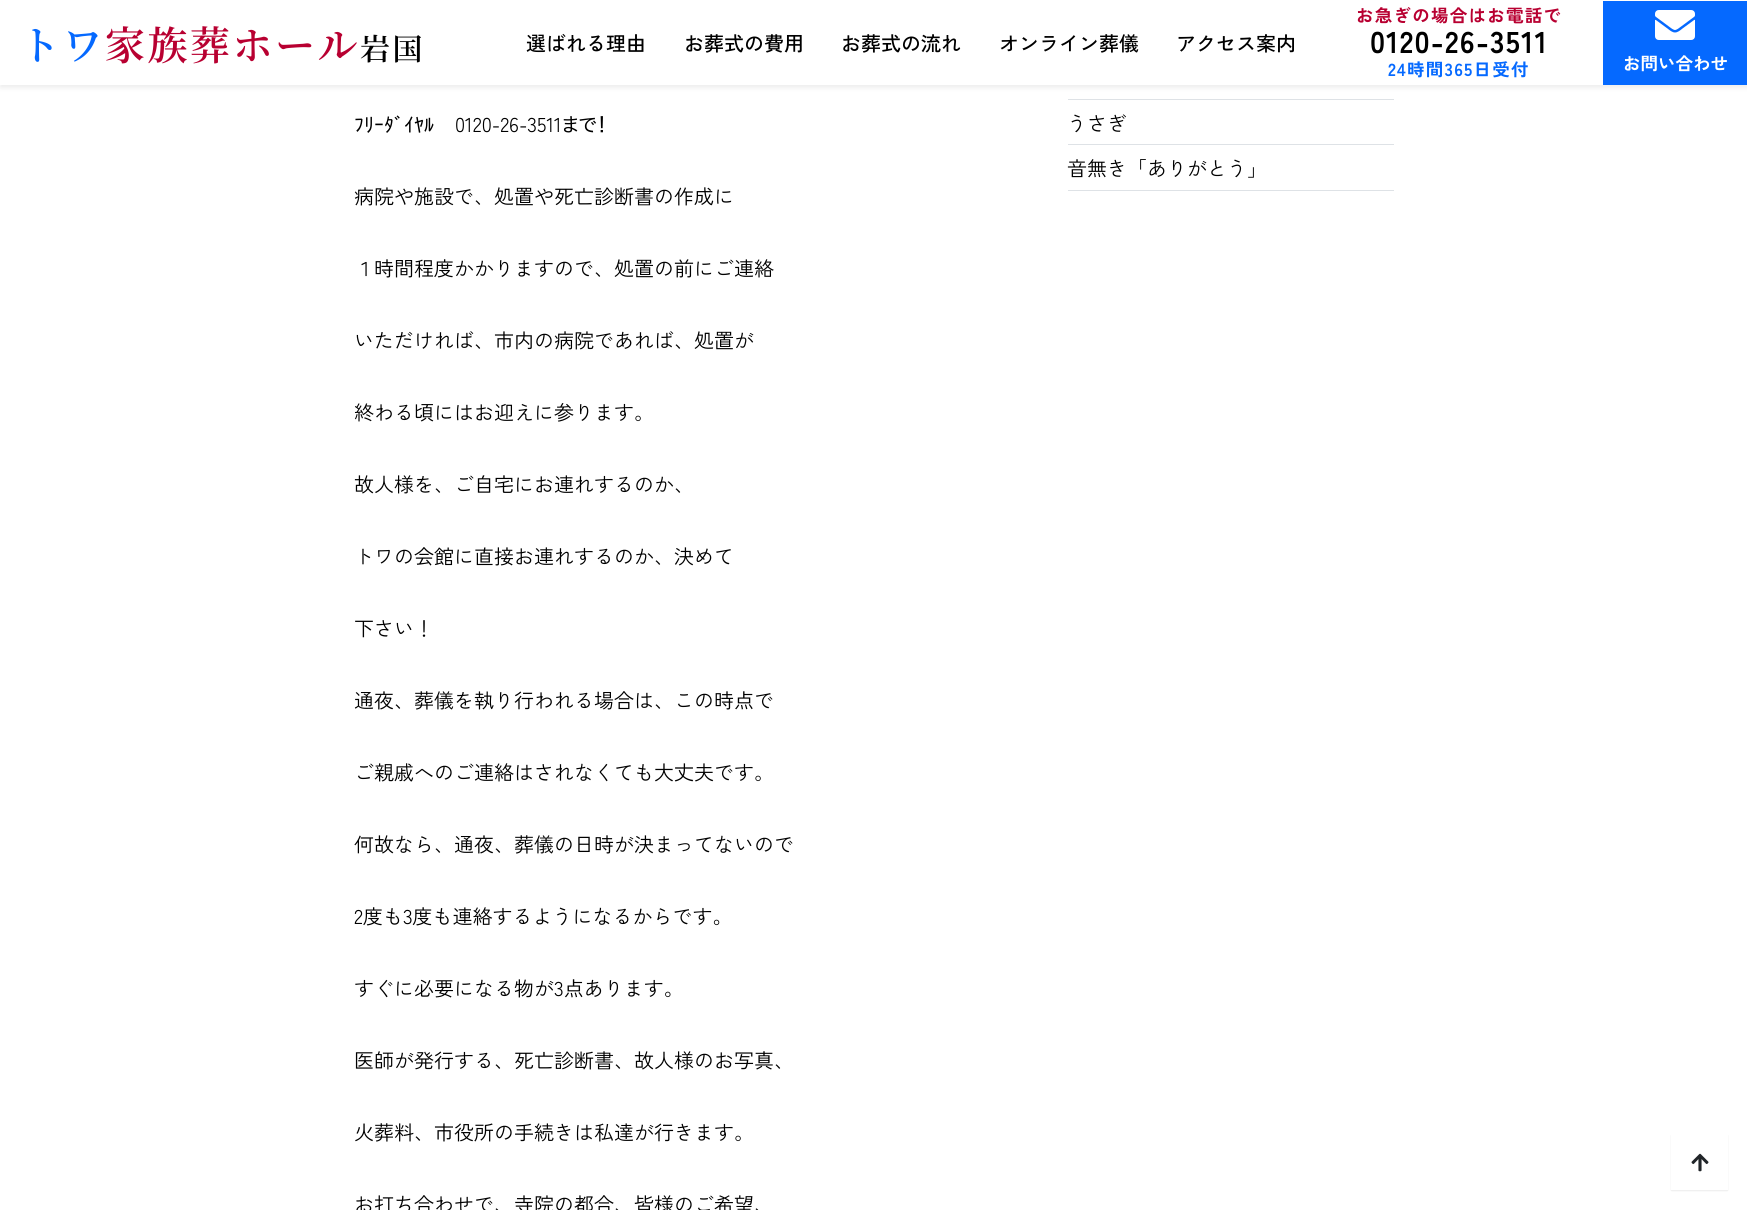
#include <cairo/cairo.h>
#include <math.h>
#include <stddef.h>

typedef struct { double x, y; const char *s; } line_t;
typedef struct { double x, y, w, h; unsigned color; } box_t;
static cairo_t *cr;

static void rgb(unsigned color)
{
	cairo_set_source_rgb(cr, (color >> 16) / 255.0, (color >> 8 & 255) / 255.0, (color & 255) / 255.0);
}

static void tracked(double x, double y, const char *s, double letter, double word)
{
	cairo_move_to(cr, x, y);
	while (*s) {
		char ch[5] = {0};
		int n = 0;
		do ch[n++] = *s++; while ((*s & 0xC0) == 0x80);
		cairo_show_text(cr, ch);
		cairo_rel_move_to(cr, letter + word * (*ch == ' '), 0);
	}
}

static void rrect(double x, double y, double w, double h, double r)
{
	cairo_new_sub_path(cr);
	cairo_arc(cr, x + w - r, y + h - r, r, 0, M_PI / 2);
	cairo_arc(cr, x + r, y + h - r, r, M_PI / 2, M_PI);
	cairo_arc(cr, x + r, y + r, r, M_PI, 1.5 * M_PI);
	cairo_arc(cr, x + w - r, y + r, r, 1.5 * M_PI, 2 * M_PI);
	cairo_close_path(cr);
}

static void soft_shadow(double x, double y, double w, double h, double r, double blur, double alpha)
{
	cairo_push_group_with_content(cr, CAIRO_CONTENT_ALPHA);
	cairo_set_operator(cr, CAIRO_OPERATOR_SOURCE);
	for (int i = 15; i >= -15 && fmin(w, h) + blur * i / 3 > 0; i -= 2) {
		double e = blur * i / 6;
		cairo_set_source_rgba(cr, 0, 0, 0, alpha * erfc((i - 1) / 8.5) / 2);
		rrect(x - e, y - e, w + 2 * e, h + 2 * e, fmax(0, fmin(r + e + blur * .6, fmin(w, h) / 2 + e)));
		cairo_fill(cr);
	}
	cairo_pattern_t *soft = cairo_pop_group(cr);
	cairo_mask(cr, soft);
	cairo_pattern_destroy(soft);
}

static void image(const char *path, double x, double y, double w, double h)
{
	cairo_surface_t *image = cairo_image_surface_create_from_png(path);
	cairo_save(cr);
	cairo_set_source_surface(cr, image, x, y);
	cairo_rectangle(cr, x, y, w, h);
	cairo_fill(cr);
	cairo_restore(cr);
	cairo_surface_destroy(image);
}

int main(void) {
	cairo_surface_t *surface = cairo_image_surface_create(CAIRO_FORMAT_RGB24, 1747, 1210);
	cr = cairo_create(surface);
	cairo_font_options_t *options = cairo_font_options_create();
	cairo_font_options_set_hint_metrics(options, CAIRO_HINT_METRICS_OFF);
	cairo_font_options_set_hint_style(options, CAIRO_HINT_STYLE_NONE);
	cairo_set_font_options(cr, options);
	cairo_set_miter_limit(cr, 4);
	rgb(0xffffff);
	cairo_paint(cr);
	rgb(0x000000);
	soft_shadow(0, 3, 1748, 85, 0, 2.5, 0.07);
	rgb(0xffffff);
	cairo_rectangle(cr, 0, 0, 1747, 85);
	cairo_fill(cr);
	rgb(0x0569ff);
	cairo_rectangle(cr, 1603, 1, 144, 84);
	cairo_fill(cr);
	image("img/1.png", 1655, 10, 40, 30);
	{
		static const box_t items[] = {
			{1068, 99, 326, 1, 0xdee2e6},
			{1068, 144, 326, 1, 0xdee2e6},
			{1068, 190, 326, 1, 0xdee2e6},
		};
		for (size_t i = 0; i < sizeof items / sizeof *items; i++) {
			rgb(items[i].color);
			cairo_rectangle(cr, items[i].x, items[i].y, items[i].w, items[i].h);
			cairo_fill(cr);
		}
	}
	cairo_save(cr);
	cairo_set_fill_rule(cr, CAIRO_FILL_RULE_EVEN_ODD);
	cairo_new_path(cr);
	cairo_move_to(cr, 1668, 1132);
	cairo_line_to(cr, 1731, 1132);
	cairo_line_to(cr, 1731, 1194);
	cairo_line_to(cr, 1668, 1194);
	cairo_close_path(cr);
	cairo_move_to(cr, 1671, 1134);
	cairo_line_to(cr, 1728, 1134);
	cairo_line_to(cr, 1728, 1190);
	cairo_line_to(cr, 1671, 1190);
	cairo_close_path(cr);
	cairo_clip(cr);
	rgb(0x000000);
	soft_shadow(1671, 1135, 57, 56, 0, 0.5, 0.07);
	cairo_restore(cr);
	cairo_set_source_rgba(cr, 1, 1, 1, 0.4);
	cairo_rectangle(cr, 1727, 1135, 1, 55);
	cairo_fill(cr);
	image("img/2.png", 1691, 1153, 18, 19);
	cairo_select_font_face(cr, "Noto Serif JP ExtraLight", CAIRO_FONT_SLANT_NORMAL, CAIRO_FONT_WEIGHT_NORMAL);
	cairo_set_font_size(cr, 40);
	rgb(0x0569ff);
	tracked(20, 60, "トワ", 2.5, 0);
	rgb(0xb80031);
	tracked(105, 60, "家族葬ホール", 2.5, 0);
	cairo_set_font_size(cr, 30);
	rgb(0x000000);
	tracked(360, 60, "岩国", 2.5, 0);
	cairo_select_font_face(cr, "Zen Kaku Gothic New Medium", CAIRO_FONT_SLANT_NORMAL, CAIRO_FONT_WEIGHT_NORMAL);
	cairo_set_font_size(cr, 20);
	{
		static const line_t items[] = {
			{526, 51, "選ばれる理由"},
			{684, 51, "お葬式の費用"},
			{841, 51, "お葬式の流れ"},
			{999, 51, "オンライン葬儀"},
			{1176, 51, "アクセス案内"},
		};
		for (size_t i = 0; i < sizeof items / sizeof *items; i++) {
			cairo_move_to(cr, items[i].x, items[i].y);
			cairo_show_text(cr, items[i].s);
		}
	}
	cairo_select_font_face(cr, "Zen Kaku Gothic New", CAIRO_FONT_SLANT_NORMAL, CAIRO_FONT_WEIGHT_BOLD);
	cairo_set_font_size(cr, 17.5);
	rgb(0xb80031);
	tracked(1356, 22, "お急ぎの場合はお電話で", 1.25, 0);
	cairo_set_font_size(cr, 30);
	rgb(0x000000);
	tracked(1370, 53, "0120-26-3511", 1.25, 0);
	cairo_set_font_size(cr, 17.5);
	rgb(0x0569ff);
	tracked(1388, 76, "24時間365日受付", 1.25, 0);
	rgb(0xffffff);
	cairo_move_to(cr, 1623, 70);
	cairo_show_text(cr, "お問い合わせ");
	cairo_select_font_face(cr, "IPAPGothic", CAIRO_FONT_SLANT_NORMAL, CAIRO_FONT_WEIGHT_NORMAL);
	cairo_set_font_size(cr, 20);
	rgb(0x000000);
	cairo_move_to(cr, 354, 132);
	cairo_show_text(cr, "ﾌﾘｰﾀﾞｲﾔﾙ");
	cairo_select_font_face(cr, "Zen Kaku Gothic New", CAIRO_FONT_SLANT_NORMAL, CAIRO_FONT_WEIGHT_NORMAL);
	cairo_move_to(cr, 455, 132);
	cairo_show_text(cr, "0120-26-3511");
	cairo_select_font_face(cr, "IPAPGothic", CAIRO_FONT_SLANT_NORMAL, CAIRO_FONT_WEIGHT_NORMAL);
	cairo_move_to(cr, 562, 132);
	cairo_show_text(cr, "まで！");
	cairo_select_font_face(cr, "Zen Kaku Gothic New", CAIRO_FONT_SLANT_NORMAL, CAIRO_FONT_WEIGHT_NORMAL);
	{
		static const line_t items[] = {
			{354, 204, "病院や施設で、処置や死亡診断書の作成に"},
			{354, 276, "１時間程度かかりますので、処置の前にご連絡"},
			{354, 348, "いただければ、市内の病院であれば、処置が"},
			{354, 420, "終わる頃にはお迎えに参ります。"},
			{354, 492, "故人様を、ご自宅にお連れするのか、"},
			{354, 564, "トワの会館に直接お連れするのか、決めて"},
			{354, 636, "下さい！"},
			{354, 708, "通夜、葬儀を執り行われる場合は、この時点で"},
			{354, 780, "ご親戚へのご連絡はされなくても大丈夫です。"},
			{354, 852, "何故なら、通夜、葬儀の日時が決まってないので"},
			{354, 924, "2度も3度も連絡するようになるからです。"},
			{354, 996, "すぐに必要になる物が3点あります。"},
			{354, 1068, "医師が発行する、死亡診断書、故人様のお写真、"},
			{354, 1140, "火葬料、市役所の手続きは私達が行きます。"},
			{354, 1212, "お打ち合わせで、寺院の都合、皆様のご希望、"},
			{1067, 131, "うさぎ"},
			{1067, 176, "音無き「ありがとう」"},
		};
		for (size_t i = 0; i < sizeof items / sizeof *items; i++) {
			cairo_move_to(cr, items[i].x, items[i].y);
			cairo_show_text(cr, items[i].s);
		}
	}
	cairo_surface_write_to_png(surface, "page.png");
	cairo_font_options_destroy(options);
	cairo_destroy(cr);
	cairo_surface_destroy(surface);
	return 0;
}
